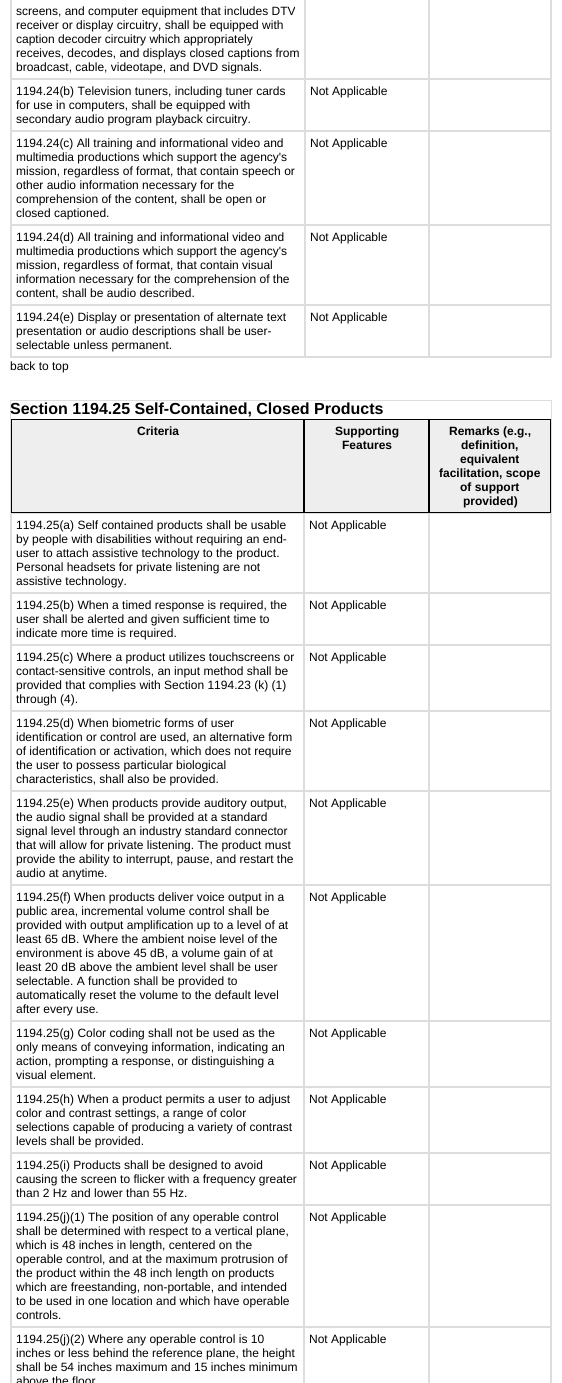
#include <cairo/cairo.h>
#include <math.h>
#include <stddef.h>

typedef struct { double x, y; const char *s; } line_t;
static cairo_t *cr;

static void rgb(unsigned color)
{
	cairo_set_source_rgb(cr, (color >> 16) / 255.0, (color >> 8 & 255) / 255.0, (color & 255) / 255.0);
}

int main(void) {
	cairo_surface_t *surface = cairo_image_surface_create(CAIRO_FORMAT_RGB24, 562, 1383);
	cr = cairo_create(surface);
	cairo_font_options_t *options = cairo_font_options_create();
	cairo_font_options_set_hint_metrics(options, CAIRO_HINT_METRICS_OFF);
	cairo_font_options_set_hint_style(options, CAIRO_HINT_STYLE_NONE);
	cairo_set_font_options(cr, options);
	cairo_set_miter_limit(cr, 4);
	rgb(0xffffff);
	cairo_paint(cr);
	cairo_rectangle(cr, 10.5, -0.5, 541, 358);
	rgb(0xdddddd);
	cairo_set_line_width(cr, 1);
	cairo_stroke(cr);
	cairo_rectangle(cr, 11.5, -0.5, 293, 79);
	cairo_stroke(cr);
	cairo_rectangle(cr, 305.5, -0.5, 123, 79);
	cairo_stroke(cr);
	cairo_rectangle(cr, 429.5, -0.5, 121, 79);
	cairo_stroke(cr);
	cairo_rectangle(cr, 11.5, 79.5, 293, 51);
	cairo_stroke(cr);
	cairo_rectangle(cr, 305.5, 79.5, 123, 51);
	cairo_stroke(cr);
	cairo_rectangle(cr, 429.5, 79.5, 121, 51);
	cairo_stroke(cr);
	cairo_rectangle(cr, 11.5, 131.5, 293, 93);
	cairo_stroke(cr);
	cairo_rectangle(cr, 305.5, 131.5, 123, 93);
	cairo_stroke(cr);
	cairo_rectangle(cr, 429.5, 131.5, 121, 93);
	cairo_stroke(cr);
	cairo_rectangle(cr, 11.5, 225.5, 293, 79);
	cairo_stroke(cr);
	cairo_rectangle(cr, 305.5, 225.5, 123, 79);
	cairo_stroke(cr);
	cairo_rectangle(cr, 429.5, 225.5, 121, 79);
	cairo_stroke(cr);
	cairo_rectangle(cr, 11.5, 305.5, 293, 51);
	cairo_stroke(cr);
	cairo_rectangle(cr, 305.5, 305.5, 123, 51);
	cairo_stroke(cr);
	cairo_rectangle(cr, 429.5, 305.5, 121, 51);
	cairo_stroke(cr);
	cairo_rectangle(cr, 10.5, 400.5, 541, 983);
	cairo_stroke(cr);
	rgb(0xeeeeee);
	cairo_rectangle(cr, 11.5, 419.5, 292, 93);
	cairo_fill_preserve(cr);
	rgb(0x000000);
	cairo_stroke(cr);
	rgb(0xeeeeee);
	cairo_rectangle(cr, 304.5, 419.5, 124, 93);
	cairo_fill_preserve(cr);
	rgb(0x000000);
	cairo_stroke(cr);
	rgb(0xeeeeee);
	cairo_rectangle(cr, 429.5, 419.5, 121, 93);
	cairo_fill_preserve(cr);
	rgb(0x000000);
	cairo_stroke(cr);
	cairo_rectangle(cr, 11.5, 513.5, 292, 79);
	rgb(0xdddddd);
	cairo_stroke(cr);
	cairo_rectangle(cr, 304.5, 513.5, 124, 79);
	cairo_stroke(cr);
	cairo_rectangle(cr, 429.5, 513.5, 121, 79);
	cairo_stroke(cr);
	cairo_rectangle(cr, 11.5, 593.5, 292, 51);
	cairo_stroke(cr);
	cairo_rectangle(cr, 304.5, 593.5, 124, 51);
	cairo_stroke(cr);
	cairo_rectangle(cr, 429.5, 593.5, 121, 51);
	cairo_stroke(cr);
	cairo_rectangle(cr, 11.5, 645.5, 292, 65);
	cairo_stroke(cr);
	cairo_rectangle(cr, 304.5, 645.5, 124, 65);
	cairo_stroke(cr);
	cairo_rectangle(cr, 429.5, 645.5, 121, 65);
	cairo_stroke(cr);
	cairo_rectangle(cr, 11.5, 711.5, 292, 79);
	cairo_stroke(cr);
	cairo_rectangle(cr, 304.5, 711.5, 124, 79);
	cairo_stroke(cr);
	cairo_rectangle(cr, 429.5, 711.5, 121, 79);
	cairo_stroke(cr);
	cairo_rectangle(cr, 11.5, 791.5, 292, 93);
	cairo_stroke(cr);
	cairo_rectangle(cr, 304.5, 791.5, 124, 93);
	cairo_stroke(cr);
	cairo_rectangle(cr, 429.5, 791.5, 121, 93);
	cairo_stroke(cr);
	cairo_rectangle(cr, 11.5, 885.5, 292, 135);
	cairo_stroke(cr);
	cairo_rectangle(cr, 304.5, 885.5, 124, 135);
	cairo_stroke(cr);
	cairo_rectangle(cr, 429.5, 885.5, 121, 135);
	cairo_stroke(cr);
	cairo_rectangle(cr, 11.5, 1021.5, 292, 65);
	cairo_stroke(cr);
	cairo_rectangle(cr, 304.5, 1021.5, 124, 65);
	cairo_stroke(cr);
	cairo_rectangle(cr, 429.5, 1021.5, 121, 65);
	cairo_stroke(cr);
	cairo_rectangle(cr, 11.5, 1087.5, 292, 65);
	cairo_stroke(cr);
	cairo_rectangle(cr, 304.5, 1087.5, 124, 65);
	cairo_stroke(cr);
	cairo_rectangle(cr, 429.5, 1087.5, 121, 65);
	cairo_stroke(cr);
	cairo_rectangle(cr, 11.5, 1153.5, 292, 51);
	cairo_stroke(cr);
	cairo_rectangle(cr, 304.5, 1153.5, 124, 51);
	cairo_stroke(cr);
	cairo_rectangle(cr, 429.5, 1153.5, 121, 51);
	cairo_stroke(cr);
	cairo_rectangle(cr, 11.5, 1205.5, 292, 121);
	cairo_stroke(cr);
	cairo_rectangle(cr, 304.5, 1205.5, 124, 121);
	cairo_stroke(cr);
	cairo_rectangle(cr, 429.5, 1205.5, 121, 121);
	cairo_stroke(cr);
	cairo_rectangle(cr, 11.5, 1327.5, 292, 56);
	cairo_stroke(cr);
	cairo_rectangle(cr, 304.5, 1327.5, 124, 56);
	cairo_stroke(cr);
	cairo_rectangle(cr, 429.5, 1327.5, 121, 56);
	cairo_stroke(cr);
	cairo_select_font_face(cr, "Liberation Sans", CAIRO_FONT_SLANT_NORMAL, CAIRO_FONT_WEIGHT_NORMAL);
	cairo_set_font_size(cr, 12);
	rgb(0x000000);
	{
		static const line_t items[] = {
			{16, 15, "screens, and computer equipment that includes DTV"},
			{16, 29, "receiver or display circuitry, shall be equipped with"},
			{16, 43, "caption decoder circuitry which appropriately"},
			{16, 57, "receives, decodes, and displays closed captions from"},
			{16, 71, "broadcast, cable, videotape, and DVD signals."},
			{16, 95, "1194.24(b) Television tuners, including tuner cards"},
			{16, 109, "for use in computers, shall be equipped with"},
			{16, 123, "secondary audio program playback circuitry."},
			{310, 95, "Not Applicable"},
			{16, 147, "1194.24(c) All training and informational video and"},
			{16, 161, "multimedia productions which support the agency's"},
			{16, 175, "mission, regardless of format, that contain speech or"},
			{16, 189, "other audio information necessary for the"},
			{16, 203, "comprehension of the content, shall be open or"},
			{16, 217, "closed captioned."},
			{310, 147, "Not Applicable"},
			{16, 241, "1194.24(d) All training and informational video and"},
			{16, 255, "multimedia productions which support the agency's"},
			{16, 269, "mission, regardless of format, that contain visual"},
			{16, 283, "information necessary for the comprehension of the"},
			{16, 297, "content, shall be audio described."},
			{310, 241, "Not Applicable"},
			{16, 321, "1194.24(e) Display or presentation of alternate text"},
			{16, 335, "presentation or audio descriptions shall be user-"},
			{16, 349, "selectable unless permanent."},
			{310, 321, "Not Applicable"},
			{10, 370, "back to top"},
		};
		for (size_t i = 0; i < sizeof items / sizeof *items; i++) {
			cairo_move_to(cr, items[i].x, items[i].y);
			cairo_show_text(cr, items[i].s);
		}
	}
	cairo_select_font_face(cr, "Liberation Sans", CAIRO_FONT_SLANT_NORMAL, CAIRO_FONT_WEIGHT_BOLD);
	cairo_set_font_size(cr, 16);
	cairo_move_to(cr, 10, 414);
	cairo_show_text(cr, "Section 1194.25 Self-Contained, Closed Products");
	cairo_set_font_size(cr, 12);
	{
		static const line_t items[] = {
			{137, 435, "Criteria"},
			{335, 435, "Supporting"},
			{342, 449, "Features"},
			{449, 435, "Remarks (e.g.,"},
			{461, 449, "definition,"},
			{460, 463, "equivalent"},
			{439, 477, "facilitation, scope"},
			{460, 491, "of support"},
			{463, 505, "provided)"},
		};
		for (size_t i = 0; i < sizeof items / sizeof *items; i++) {
			cairo_move_to(cr, items[i].x, items[i].y);
			cairo_show_text(cr, items[i].s);
		}
	}
	cairo_select_font_face(cr, "Liberation Sans", CAIRO_FONT_SLANT_NORMAL, CAIRO_FONT_WEIGHT_NORMAL);
	{
		static const line_t items[] = {
			{16, 529, "1194.25(a) Self contained products shall be usable"},
			{16, 543, "by people with disabilities without requiring an end-"},
			{16, 557, "user to attach assistive technology to the product."},
			{16, 571, "Personal headsets for private listening are not"},
			{16, 585, "assistive technology."},
			{309, 529, "Not Applicable"},
			{16, 609, "1194.25(b) When a timed response is required, the"},
			{16, 623, "user shall be alerted and given sufficient time to"},
			{16, 637, "indicate more time is required."},
			{309, 609, "Not Applicable"},
			{16, 661, "1194.25(c) Where a product utilizes touchscreens or"},
			{16, 675, "contact-sensitive controls, an input method shall be"},
			{16, 689, "provided that complies with Section 1194.23 (k) (1)"},
			{16, 703, "through (4)."},
			{309, 661, "Not Applicable"},
			{16, 727, "1194.25(d) When biometric forms of user"},
			{16, 741, "identification or control are used, an alternative form"},
			{16, 755, "of identification or activation, which does not require"},
			{16, 769, "the user to possess particular biological"},
			{16, 783, "characteristics, shall also be provided."},
			{309, 727, "Not Applicable"},
			{16, 807, "1194.25(e) When products provide auditory output,"},
			{16, 821, "the audio signal shall be provided at a standard"},
			{16, 835, "signal level through an industry standard connector"},
			{16, 849, "that will allow for private listening. The product must"},
			{16, 863, "provide the ability to interrupt, pause, and restart the"},
			{16, 877, "audio at anytime."},
			{309, 807, "Not Applicable"},
			{16, 901, "1194.25(f) When products deliver voice output in a"},
			{16, 915, "public area, incremental volume control shall be"},
			{16, 929, "provided with output amplification up to a level of at"},
			{16, 943, "least 65 dB. Where the ambient noise level of the"},
			{16, 957, "environment is above 45 dB, a volume gain of at"},
			{16, 971, "least 20 dB above the ambient level shall be user"},
			{16, 985, "selectable. A function shall be provided to"},
			{16, 999, "automatically reset the volume to the default level"},
			{16, 1013, "after every use."},
			{309, 901, "Not Applicable"},
			{16, 1037, "1194.25(g) Color coding shall not be used as the"},
			{16, 1051, "only means of conveying information, indicating an"},
			{16, 1065, "action, prompting a response, or distinguishing a"},
			{16, 1079, "visual element."},
			{309, 1037, "Not Applicable"},
			{16, 1103, "1194.25(h) When a product permits a user to adjust"},
			{16, 1117, "color and contrast settings, a range of color"},
			{16, 1131, "selections capable of producing a variety of contrast"},
			{16, 1145, "levels shall be provided."},
			{309, 1103, "Not Applicable"},
			{16, 1169, "1194.25(i) Products shall be designed to avoid"},
			{16, 1183, "causing the screen to flicker with a frequency greater"},
			{16, 1197, "than 2 Hz and lower than 55 Hz."},
			{309, 1169, "Not Applicable"},
			{16, 1221, "1194.25(j)(1) The position of any operable control"},
			{16, 1235, "shall be determined with respect to a vertical plane,"},
			{16, 1249, "which is 48 inches in length, centered on the"},
			{16, 1263, "operable control, and at the maximum protrusion of"},
			{16, 1277, "the product within the 48 inch length on products"},
			{16, 1291, "which are freestanding, non-portable, and intended"},
			{16, 1305, "to be used in one location and which have operable"},
			{16, 1319, "controls."},
			{309, 1221, "Not Applicable"},
			{16, 1343, "1194.25(j)(2) Where any operable control is 10"},
			{16, 1357, "inches or less behind the reference plane, the height"},
			{16, 1371, "shall be 54 inches maximum and 15 inches minimum"},
			{16, 1385, "above the floor."},
			{309, 1343, "Not Applicable"},
		};
		for (size_t i = 0; i < sizeof items / sizeof *items; i++) {
			cairo_move_to(cr, items[i].x, items[i].y);
			cairo_show_text(cr, items[i].s);
		}
	}
	cairo_surface_write_to_png(surface, "page.png");
	cairo_font_options_destroy(options);
	cairo_destroy(cr);
	cairo_surface_destroy(surface);
	return 0;
}
